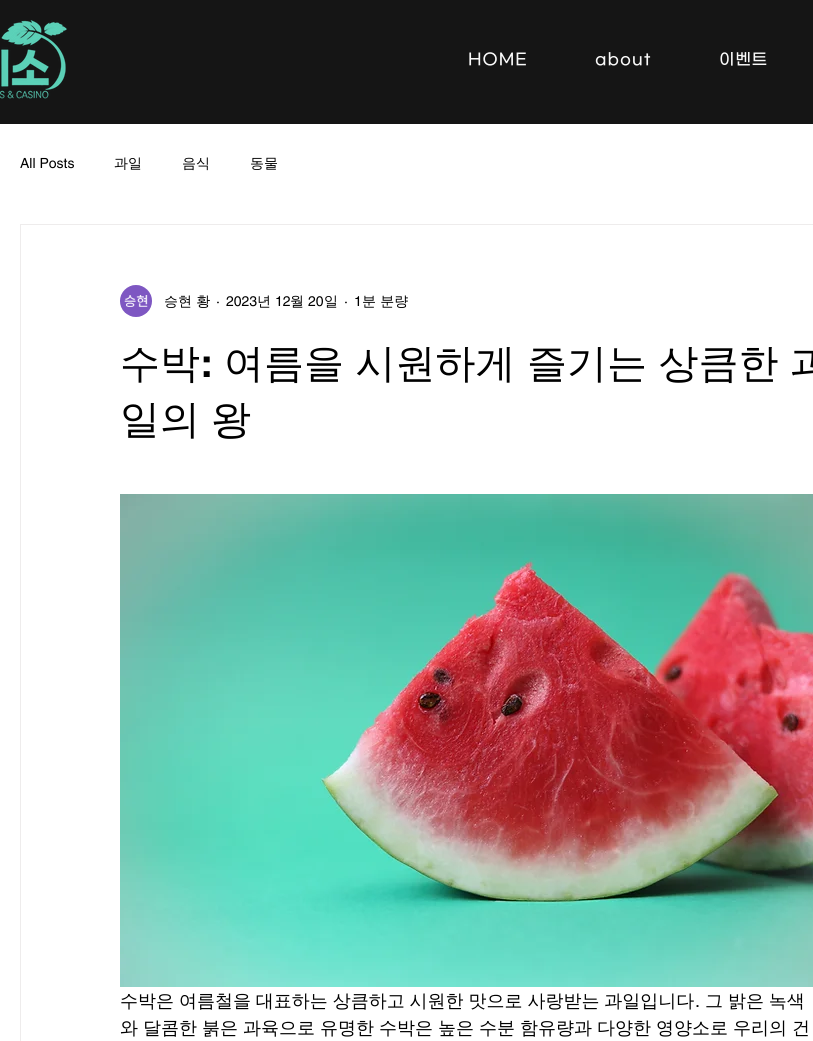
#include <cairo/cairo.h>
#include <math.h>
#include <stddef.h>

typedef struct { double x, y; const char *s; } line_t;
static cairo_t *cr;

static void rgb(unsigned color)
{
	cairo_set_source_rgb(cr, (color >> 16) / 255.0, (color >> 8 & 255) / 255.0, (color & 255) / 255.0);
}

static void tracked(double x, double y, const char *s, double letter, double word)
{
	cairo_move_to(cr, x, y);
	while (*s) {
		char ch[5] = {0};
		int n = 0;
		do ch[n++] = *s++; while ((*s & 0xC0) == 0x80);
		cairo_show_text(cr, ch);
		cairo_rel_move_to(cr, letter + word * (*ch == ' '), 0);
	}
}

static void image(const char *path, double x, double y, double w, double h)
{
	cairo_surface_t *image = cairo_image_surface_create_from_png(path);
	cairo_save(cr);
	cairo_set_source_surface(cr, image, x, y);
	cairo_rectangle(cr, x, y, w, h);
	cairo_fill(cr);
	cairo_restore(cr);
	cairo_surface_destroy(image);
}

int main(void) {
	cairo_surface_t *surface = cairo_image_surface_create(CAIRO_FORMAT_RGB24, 813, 1041);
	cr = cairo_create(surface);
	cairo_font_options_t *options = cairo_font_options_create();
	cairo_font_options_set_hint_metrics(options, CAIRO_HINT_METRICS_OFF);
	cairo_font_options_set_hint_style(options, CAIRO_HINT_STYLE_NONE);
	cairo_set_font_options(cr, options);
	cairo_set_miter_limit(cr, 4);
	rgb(0xffffff);
	cairo_paint(cr);
	rgb(0x151515);
	cairo_rectangle(cr, 0, 0, 813, 124);
	cairo_fill(cr);
	image("img/1.png", 0, 20, 67, 79);
	cairo_rectangle(cr, 20.5, 224.5, 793, 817);
	rgb(0xeeecec);
	cairo_set_line_width(cr, 1);
	cairo_stroke(cr);
	image("img/2.png", 120, 285, 32, 32);
	image("img/3.png", 120, 494, 693, 493);
	cairo_select_font_face(cr, "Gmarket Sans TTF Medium", CAIRO_FONT_SLANT_NORMAL, CAIRO_FONT_WEIGHT_NORMAL);
	cairo_set_font_size(cr, 16);
	rgb(0xf9f9f9);
	{
		static const line_t items[] = {
			{468, 64, "HOME"},
			{595, 64, "about"},
			{719, 64, "이벤트"},
		};
		for (size_t i = 0; i < sizeof items / sizeof *items; i++) {
			tracked(items[i].x, items[i].y, items[i].s, 1, 0);
		}
	}
	cairo_select_font_face(cr, "helvetica", CAIRO_FONT_SLANT_NORMAL, CAIRO_FONT_WEIGHT_NORMAL);
	cairo_set_font_size(cr, 14);
	rgb(0x000000);
	cairo_move_to(cr, 20, 168);
	cairo_show_text(cr, "All Posts");
	cairo_select_font_face(cr, "WenQuanYi Zen Hei Medium", CAIRO_FONT_SLANT_NORMAL, CAIRO_FONT_WEIGHT_NORMAL);
	{
		static const line_t items[] = {
			{114, 168, "과일"},
			{182, 168, "음식"},
			{250, 168, "동물"},
			{164, 306, "승현 황"},
		};
		for (size_t i = 0; i < sizeof items / sizeof *items; i++) {
			cairo_move_to(cr, items[i].x, items[i].y);
			cairo_show_text(cr, items[i].s);
		}
	}
	cairo_select_font_face(cr, "helvetica", CAIRO_FONT_SLANT_NORMAL, CAIRO_FONT_WEIGHT_NORMAL);
	cairo_move_to(cr, 216, 306);
	cairo_show_text(cr, "·");
	cairo_move_to(cr, 226, 306);
	cairo_show_text(cr, "2023");
	cairo_select_font_face(cr, "WenQuanYi Zen Hei Medium", CAIRO_FONT_SLANT_NORMAL, CAIRO_FONT_WEIGHT_NORMAL);
	cairo_move_to(cr, 257, 306);
	cairo_show_text(cr, "년");
	cairo_select_font_face(cr, "helvetica", CAIRO_FONT_SLANT_NORMAL, CAIRO_FONT_WEIGHT_NORMAL);
	cairo_move_to(cr, 275, 306);
	cairo_show_text(cr, "12");
	cairo_select_font_face(cr, "WenQuanYi Zen Hei Medium", CAIRO_FONT_SLANT_NORMAL, CAIRO_FONT_WEIGHT_NORMAL);
	cairo_move_to(cr, 290, 306);
	cairo_show_text(cr, "월");
	cairo_select_font_face(cr, "helvetica", CAIRO_FONT_SLANT_NORMAL, CAIRO_FONT_WEIGHT_NORMAL);
	cairo_move_to(cr, 308, 306);
	cairo_show_text(cr, "20");
	cairo_select_font_face(cr, "WenQuanYi Zen Hei Medium", CAIRO_FONT_SLANT_NORMAL, CAIRO_FONT_WEIGHT_NORMAL);
	cairo_move_to(cr, 324, 306);
	cairo_show_text(cr, "일");
	cairo_select_font_face(cr, "helvetica", CAIRO_FONT_SLANT_NORMAL, CAIRO_FONT_WEIGHT_NORMAL);
	cairo_move_to(cr, 344, 306);
	cairo_show_text(cr, "·");
	cairo_move_to(cr, 354, 306);
	cairo_show_text(cr, "1");
	cairo_select_font_face(cr, "WenQuanYi Zen Hei Medium", CAIRO_FONT_SLANT_NORMAL, CAIRO_FONT_WEIGHT_NORMAL);
	cairo_move_to(cr, 362, 306);
	cairo_show_text(cr, "분 분량");
	cairo_set_font_size(cr, 40);
	cairo_move_to(cr, 120, 377);
	cairo_show_text(cr, "수박");
	cairo_select_font_face(cr, "helvetica", CAIRO_FONT_SLANT_NORMAL, CAIRO_FONT_WEIGHT_BOLD);
	cairo_move_to(cr, 200, 377);
	cairo_show_text(cr, ":");
	cairo_select_font_face(cr, "WenQuanYi Zen Hei Medium", CAIRO_FONT_SLANT_NORMAL, CAIRO_FONT_WEIGHT_NORMAL);
	tracked(224, 377, "여름을 시원하게 즐기는 상큼한 과", 0, -0.5);
	tracked(120, 433, "일의 왕", 0, -1);
	cairo_set_font_size(cr, 18);
	tracked(120, 1007, "수박은 여름철을 대표하는 상큼하고 시원한 맛으로 사랑받는 과일입니다", 0, -0.5);
	cairo_select_font_face(cr, "helvetica", CAIRO_FONT_SLANT_NORMAL, CAIRO_FONT_WEIGHT_NORMAL);
	cairo_move_to(cr, 695, 1007);
	cairo_show_text(cr, ".");
	cairo_select_font_face(cr, "WenQuanYi Zen Hei Medium", CAIRO_FONT_SLANT_NORMAL, CAIRO_FONT_WEIGHT_NORMAL);
	tracked(705, 1007, "그 밝은 녹색", 0, -0.5);
	tracked(120, 1034, "와 달콤한 붉은 과육으로 유명한 수박은 높은 수분 함유량과 다양한 영양소로 우리의 건", 0, -0.4);
	cairo_surface_write_to_png(surface, "page.png");
	cairo_font_options_destroy(options);
	cairo_destroy(cr);
	cairo_surface_destroy(surface);
	return 0;
}
